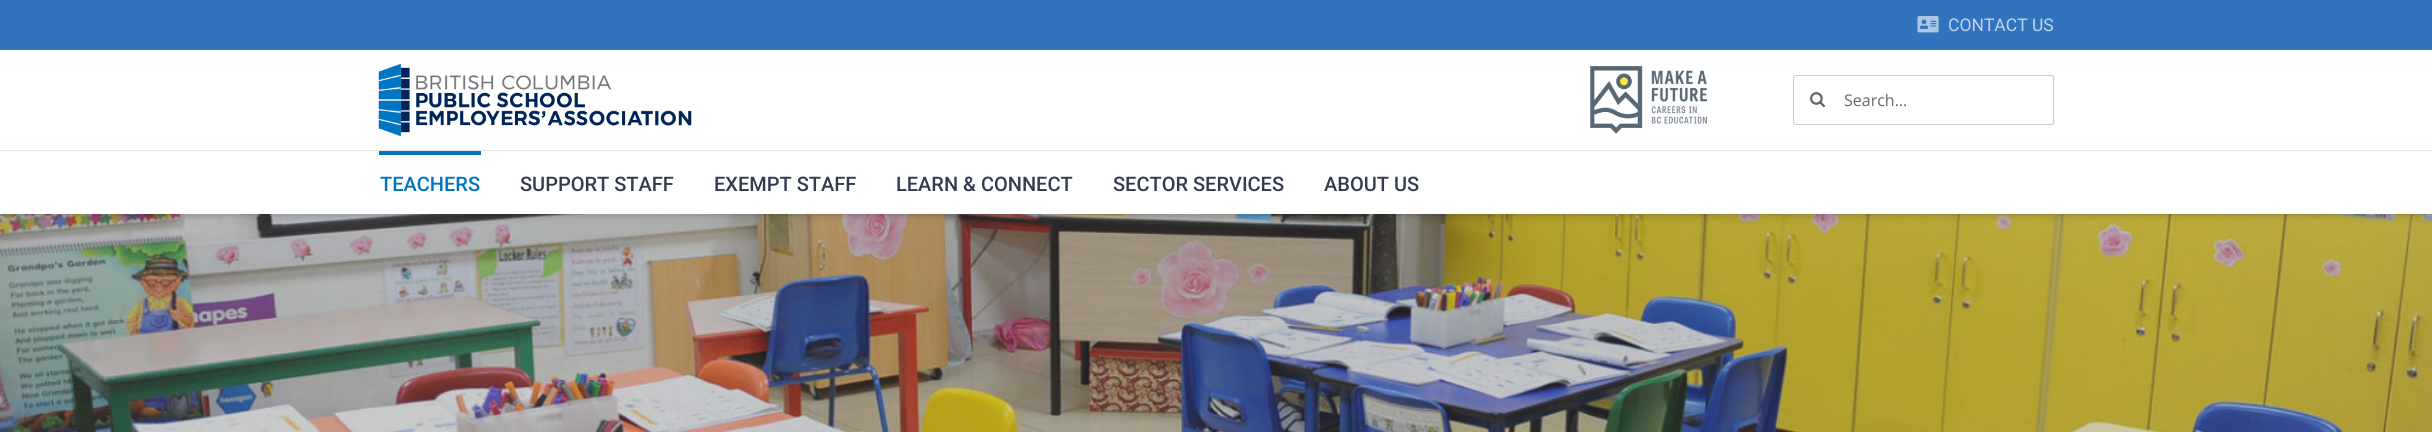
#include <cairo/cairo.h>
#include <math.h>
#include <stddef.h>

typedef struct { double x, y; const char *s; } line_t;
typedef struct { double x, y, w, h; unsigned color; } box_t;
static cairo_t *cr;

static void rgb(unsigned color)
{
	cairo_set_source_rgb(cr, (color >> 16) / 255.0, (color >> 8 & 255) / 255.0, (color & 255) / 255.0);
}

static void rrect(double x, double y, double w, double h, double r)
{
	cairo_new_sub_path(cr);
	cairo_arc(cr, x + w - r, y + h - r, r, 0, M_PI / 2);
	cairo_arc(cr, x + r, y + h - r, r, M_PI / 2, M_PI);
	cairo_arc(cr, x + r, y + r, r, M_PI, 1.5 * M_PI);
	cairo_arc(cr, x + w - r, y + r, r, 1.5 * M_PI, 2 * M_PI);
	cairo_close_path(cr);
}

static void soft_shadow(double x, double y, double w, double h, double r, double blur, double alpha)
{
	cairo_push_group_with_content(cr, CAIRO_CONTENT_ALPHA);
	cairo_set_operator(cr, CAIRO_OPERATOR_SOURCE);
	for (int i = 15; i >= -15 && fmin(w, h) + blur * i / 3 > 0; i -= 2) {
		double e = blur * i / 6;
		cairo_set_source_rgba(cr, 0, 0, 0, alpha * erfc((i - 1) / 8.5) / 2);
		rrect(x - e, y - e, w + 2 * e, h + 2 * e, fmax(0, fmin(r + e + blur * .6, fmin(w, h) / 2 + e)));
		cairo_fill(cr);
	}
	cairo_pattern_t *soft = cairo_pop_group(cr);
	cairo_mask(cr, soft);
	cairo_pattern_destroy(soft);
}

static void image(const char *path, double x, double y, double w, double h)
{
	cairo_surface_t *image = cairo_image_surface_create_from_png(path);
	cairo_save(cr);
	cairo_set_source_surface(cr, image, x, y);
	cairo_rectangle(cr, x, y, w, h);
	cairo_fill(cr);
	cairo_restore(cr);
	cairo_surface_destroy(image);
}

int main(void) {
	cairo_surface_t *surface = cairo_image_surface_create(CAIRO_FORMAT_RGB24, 2432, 432);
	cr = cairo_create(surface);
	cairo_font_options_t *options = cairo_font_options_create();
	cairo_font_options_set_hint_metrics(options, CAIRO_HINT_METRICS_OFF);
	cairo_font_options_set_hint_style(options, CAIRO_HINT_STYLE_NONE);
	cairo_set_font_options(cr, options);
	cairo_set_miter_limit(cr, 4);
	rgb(0xffffff);
	cairo_paint(cr);
	rgb(0x3273be);
	cairo_rectangle(cr, 0, 0, 2432, 50);
	cairo_fill(cr);
	image("img/1.png", 1917, 16, 22, 17);
	image("img/5.png", 0, 214, 2432, 218);
	rgb(0x000000);
	soft_shadow(0, 150, 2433, 64, 0, 4.5, 0.3);
	rgb(0xffffff);
	cairo_rectangle(cr, 0, 142, 2432, 8);
	cairo_fill(cr);
	image("img/2.png", 378, 63, 314, 74);
	image("img/3.png", 1590, 66, 117, 68);
	rrect(1793.5, 75.5, 260, 49, 2);
	rgb(0xcccccc);
	cairo_set_line_width(cr, 1);
	cairo_stroke(cr);
	image("img/4.png", 1810, 92, 15, 16);
	{
		static const box_t items[] = {
			{0, 151, 2432, 63, 0xffffff},
			{0, 150, 2432, 1, 0xe7e4e2},
			{379, 151, 102, 4, 0x0075c1},
		};
		for (size_t i = 0; i < sizeof items / sizeof *items; i++) {
			rgb(items[i].color);
			cairo_rectangle(cr, items[i].x, items[i].y, items[i].w, items[i].h);
			cairo_fill(cr);
		}
	}
	cairo_select_font_face(cr, "Roboto", CAIRO_FONT_SLANT_NORMAL, CAIRO_FONT_WEIGHT_NORMAL);
	cairo_set_font_size(cr, 17.5);
	rgb(0xc2d5ec);
	cairo_move_to(cr, 1948, 31);
	cairo_show_text(cr, "CONTACT US");
	cairo_select_font_face(cr, "Open Sans", CAIRO_FONT_SLANT_NORMAL, CAIRO_FONT_WEIGHT_NORMAL);
	cairo_set_font_size(cr, 16);
	rgb(0x666666);
	cairo_move_to(cr, 1844, 106);
	cairo_show_text(cr, "Search...");
	cairo_select_font_face(cr, "Roboto Medium", CAIRO_FONT_SLANT_NORMAL, CAIRO_FONT_WEIGHT_NORMAL);
	cairo_set_font_size(cr, 20);
	rgb(0x0075c1);
	cairo_move_to(cr, 380, 191);
	cairo_show_text(cr, "TEACHERS");
	rgb(0x333c4e);
	{
		static const line_t items[] = {
			{520, 191, "SUPPORT STAFF"},
			{714, 191, "EXEMPT STAFF"},
			{896, 191, "LEARN & CONNECT"},
			{1113, 191, "SECTOR SERVICES"},
			{1324, 191, "ABOUT US"},
		};
		for (size_t i = 0; i < sizeof items / sizeof *items; i++) {
			cairo_move_to(cr, items[i].x, items[i].y);
			cairo_show_text(cr, items[i].s);
		}
	}
	cairo_surface_write_to_png(surface, "page.png");
	cairo_font_options_destroy(options);
	cairo_destroy(cr);
	cairo_surface_destroy(surface);
	return 0;
}
